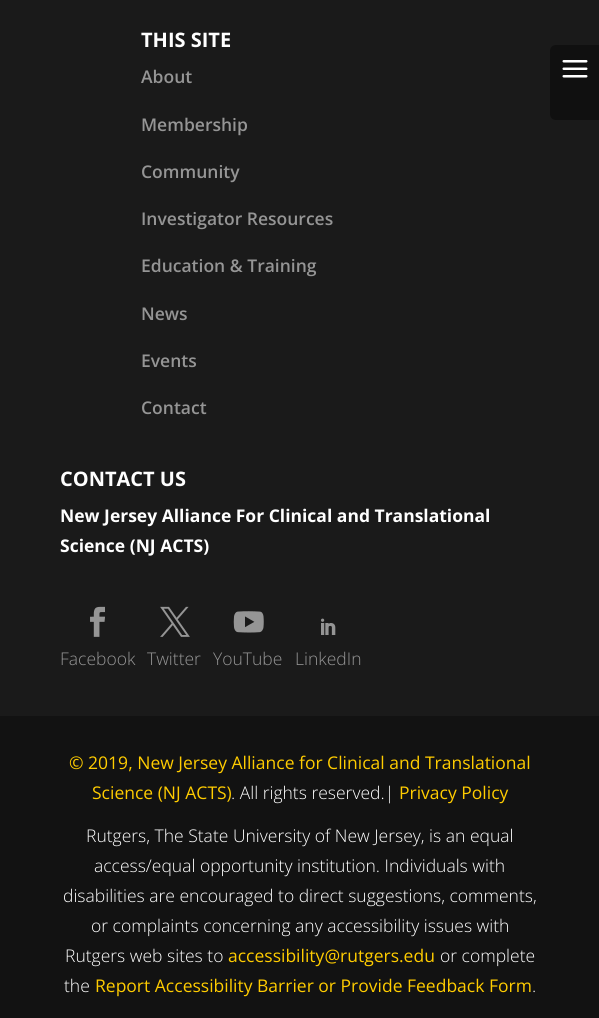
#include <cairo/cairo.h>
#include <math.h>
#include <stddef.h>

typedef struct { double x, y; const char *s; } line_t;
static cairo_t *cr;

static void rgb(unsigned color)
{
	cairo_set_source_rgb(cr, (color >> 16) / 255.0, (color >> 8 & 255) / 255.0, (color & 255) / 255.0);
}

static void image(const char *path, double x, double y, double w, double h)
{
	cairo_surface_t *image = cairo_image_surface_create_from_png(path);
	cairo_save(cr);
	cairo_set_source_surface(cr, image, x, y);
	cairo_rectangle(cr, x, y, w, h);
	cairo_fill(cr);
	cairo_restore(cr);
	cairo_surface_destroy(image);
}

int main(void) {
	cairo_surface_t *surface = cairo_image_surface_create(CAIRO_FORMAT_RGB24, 599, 1018);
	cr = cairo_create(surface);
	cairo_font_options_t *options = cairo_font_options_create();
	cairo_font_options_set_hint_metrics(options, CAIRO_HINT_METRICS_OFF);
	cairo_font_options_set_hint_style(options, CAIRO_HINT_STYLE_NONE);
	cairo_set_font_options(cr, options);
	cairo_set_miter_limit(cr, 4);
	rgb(0x1a1a1a);
	cairo_paint(cr);
	image("img/1.png", 90, 606, 15, 31);
	image("img/2.png", 160, 606, 30, 31);
	image("img/3.png", 233, 611, 31, 22);
	image("img/4.png", 321, 618, 15, 17);
	rgb(0x121212);
	cairo_rectangle(cr, 0, 716, 599, 302);
	cairo_fill(cr);
	rgb(0x101010);
	cairo_new_path(cr);
	cairo_move_to(cr, 556, 45);
	cairo_line_to(cr, 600, 45);
	cairo_line_to(cr, 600, 120);
	cairo_line_to(cr, 556, 120);
	cairo_curve_to(cr, 552.5, 120, 550, 117.5, 550, 114);
	cairo_line_to(cr, 550, 51);
	cairo_curve_to(cr, 550, 47.5, 552.5, 45, 556, 45);
	cairo_close_path(cr);
	cairo_fill(cr);
	image("img/5.png", 562, 60, 26, 18);
	cairo_select_font_face(cr, "Open Sans", CAIRO_FONT_SLANT_NORMAL, CAIRO_FONT_WEIGHT_BOLD);
	cairo_set_font_size(cr, 20);
	rgb(0xffffff);
	cairo_move_to(cr, 141, 47);
	cairo_show_text(cr, "THIS SITE");
	cairo_select_font_face(cr, "Open Sans SemiBold", CAIRO_FONT_SLANT_NORMAL, CAIRO_FONT_WEIGHT_NORMAL);
	cairo_set_font_size(cr, 17.5);
	rgb(0x959595);
	{
		static const line_t items[] = {
			{141, 83, "About"},
			{141, 131, "Membership"},
			{141, 178, "Community"},
			{141, 225, "Investigator Resources"},
			{141, 272, "Education & Training"},
			{141, 320, "News"},
			{141, 367, "Events"},
			{141, 414, "Contact"},
		};
		for (size_t i = 0; i < sizeof items / sizeof *items; i++) {
			cairo_move_to(cr, items[i].x, items[i].y);
			cairo_show_text(cr, items[i].s);
		}
	}
	cairo_select_font_face(cr, "Open Sans", CAIRO_FONT_SLANT_NORMAL, CAIRO_FONT_WEIGHT_BOLD);
	cairo_set_font_size(cr, 20);
	rgb(0xffffff);
	cairo_move_to(cr, 60, 486);
	cairo_show_text(cr, "CONTACT US");
	cairo_set_font_size(cr, 17.5);
	cairo_move_to(cr, 60, 522);
	cairo_show_text(cr, "New Jersey Alliance For Clinical and Translational");
	cairo_move_to(cr, 60, 552);
	cairo_show_text(cr, "Science (NJ ACTS)");
	cairo_select_font_face(cr, "Open Sans Light", CAIRO_FONT_SLANT_NORMAL, CAIRO_FONT_WEIGHT_NORMAL);
	rgb(0x959595);
	{
		static const line_t items[] = {
			{60, 665, "Facebook"},
			{147, 665, "Twitter"},
			{213, 665, "YouTube"},
			{295, 665, "LinkedIn"},
		};
		for (size_t i = 0; i < sizeof items / sizeof *items; i++) {
			cairo_move_to(cr, items[i].x, items[i].y);
			cairo_show_text(cr, items[i].s);
		}
	}
	cairo_select_font_face(cr, "Open Sans", CAIRO_FONT_SLANT_NORMAL, CAIRO_FONT_WEIGHT_NORMAL);
	rgb(0xffcc00);
	cairo_move_to(cr, 69, 769);
	cairo_show_text(cr, "© 2019, New Jersey Alliance for Clinical and Translational");
	cairo_move_to(cr, 92, 799);
	cairo_show_text(cr, "Science (NJ ACTS)");
	cairo_select_font_face(cr, "Open Sans Light", CAIRO_FONT_SLANT_NORMAL, CAIRO_FONT_WEIGHT_NORMAL);
	rgb(0xffffff);
	cairo_move_to(cr, 231, 799);
	cairo_show_text(cr, ". All rights reserved.|");
	cairo_select_font_face(cr, "Open Sans", CAIRO_FONT_SLANT_NORMAL, CAIRO_FONT_WEIGHT_NORMAL);
	rgb(0xffcc00);
	cairo_move_to(cr, 399, 799);
	cairo_show_text(cr, "Privacy Policy");
	cairo_select_font_face(cr, "Open Sans Light", CAIRO_FONT_SLANT_NORMAL, CAIRO_FONT_WEIGHT_NORMAL);
	rgb(0xffffff);
	{
		static const line_t items[] = {
			{86, 842, "Rutgers, The State University of New Jersey, is an equal"},
			{94, 872, "access/equal opportunity institution. Individuals with"},
			{63, 902, "disabilities are encouraged to direct suggestions, comments,"},
			{91, 932, "or complaints concerning any accessibility issues with"},
			{65, 962, "Rutgers web sites to"},
		};
		for (size_t i = 0; i < sizeof items / sizeof *items; i++) {
			cairo_move_to(cr, items[i].x, items[i].y);
			cairo_show_text(cr, items[i].s);
		}
	}
	cairo_select_font_face(cr, "Open Sans", CAIRO_FONT_SLANT_NORMAL, CAIRO_FONT_WEIGHT_NORMAL);
	rgb(0xffcc00);
	cairo_move_to(cr, 228, 962);
	cairo_show_text(cr, "accessibility@rutgers.edu");
	cairo_select_font_face(cr, "Open Sans Light", CAIRO_FONT_SLANT_NORMAL, CAIRO_FONT_WEIGHT_NORMAL);
	rgb(0xffffff);
	cairo_move_to(cr, 440, 962);
	cairo_show_text(cr, "or complete");
	cairo_move_to(cr, 64, 992);
	cairo_show_text(cr, "the");
	cairo_select_font_face(cr, "Open Sans", CAIRO_FONT_SLANT_NORMAL, CAIRO_FONT_WEIGHT_NORMAL);
	rgb(0xffcc00);
	cairo_move_to(cr, 95, 992);
	cairo_show_text(cr, "Report Accessibility Barrier or Provide Feedback Form");
	cairo_select_font_face(cr, "Open Sans Light", CAIRO_FONT_SLANT_NORMAL, CAIRO_FONT_WEIGHT_NORMAL);
	rgb(0xffffff);
	cairo_move_to(cr, 532, 992);
	cairo_show_text(cr, ".");
	cairo_surface_write_to_png(surface, "page.png");
	cairo_font_options_destroy(options);
	cairo_destroy(cr);
	cairo_surface_destroy(surface);
	return 0;
}
